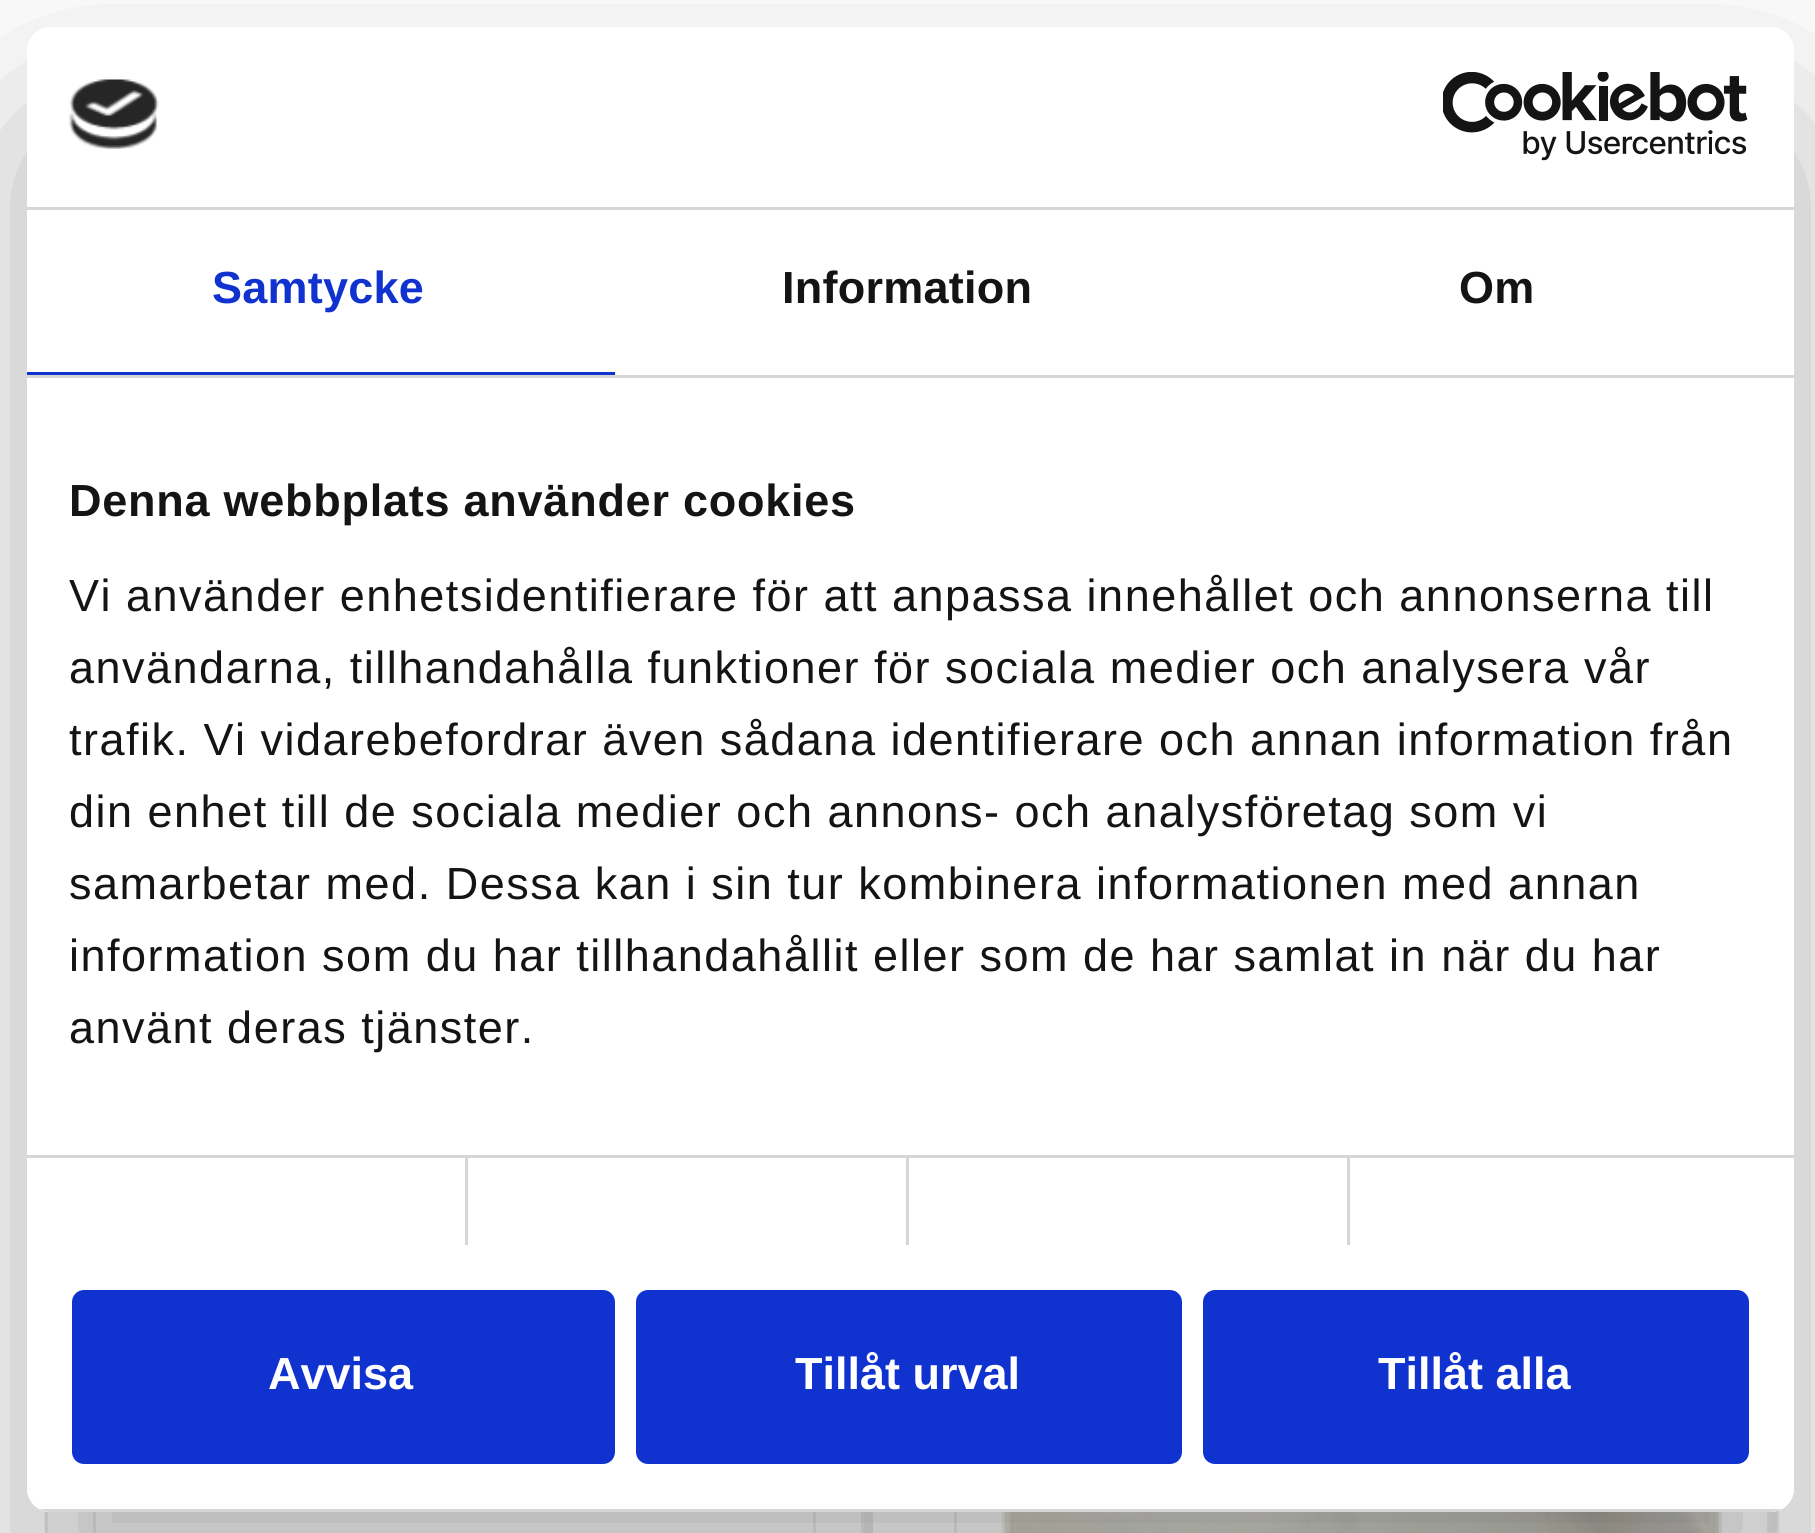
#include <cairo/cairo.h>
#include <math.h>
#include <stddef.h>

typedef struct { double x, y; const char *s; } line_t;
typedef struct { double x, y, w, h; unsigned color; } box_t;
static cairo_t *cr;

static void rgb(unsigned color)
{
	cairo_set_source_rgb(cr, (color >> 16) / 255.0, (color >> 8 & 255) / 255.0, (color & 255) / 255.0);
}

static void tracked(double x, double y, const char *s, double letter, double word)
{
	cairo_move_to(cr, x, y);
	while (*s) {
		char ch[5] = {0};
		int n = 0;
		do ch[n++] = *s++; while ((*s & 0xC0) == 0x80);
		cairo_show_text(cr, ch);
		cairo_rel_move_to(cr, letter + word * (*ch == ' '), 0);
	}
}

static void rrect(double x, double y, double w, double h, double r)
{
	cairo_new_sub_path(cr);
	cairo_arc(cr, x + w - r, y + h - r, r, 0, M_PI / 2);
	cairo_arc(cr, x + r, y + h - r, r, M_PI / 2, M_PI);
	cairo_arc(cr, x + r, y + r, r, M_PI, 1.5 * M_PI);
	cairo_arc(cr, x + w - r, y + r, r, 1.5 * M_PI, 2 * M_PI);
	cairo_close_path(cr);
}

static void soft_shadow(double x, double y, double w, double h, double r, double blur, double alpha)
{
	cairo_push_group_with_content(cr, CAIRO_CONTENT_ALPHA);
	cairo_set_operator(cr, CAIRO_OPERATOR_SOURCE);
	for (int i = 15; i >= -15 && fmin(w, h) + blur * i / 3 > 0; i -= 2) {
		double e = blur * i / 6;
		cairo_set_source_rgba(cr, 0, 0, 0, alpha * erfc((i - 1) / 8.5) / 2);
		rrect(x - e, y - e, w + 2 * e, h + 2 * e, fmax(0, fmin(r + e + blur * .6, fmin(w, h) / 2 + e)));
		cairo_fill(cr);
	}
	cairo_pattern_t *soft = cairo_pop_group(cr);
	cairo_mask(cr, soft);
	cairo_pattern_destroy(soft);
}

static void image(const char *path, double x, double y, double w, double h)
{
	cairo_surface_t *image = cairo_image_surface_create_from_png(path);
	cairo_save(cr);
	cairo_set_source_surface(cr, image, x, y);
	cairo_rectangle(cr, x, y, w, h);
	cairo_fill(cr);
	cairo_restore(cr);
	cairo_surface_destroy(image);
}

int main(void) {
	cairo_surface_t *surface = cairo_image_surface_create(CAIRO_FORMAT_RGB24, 1815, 1533);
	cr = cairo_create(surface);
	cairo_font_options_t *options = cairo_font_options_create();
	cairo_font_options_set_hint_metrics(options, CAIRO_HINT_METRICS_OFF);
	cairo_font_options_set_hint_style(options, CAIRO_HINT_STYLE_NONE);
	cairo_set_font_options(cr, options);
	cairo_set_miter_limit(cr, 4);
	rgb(0xffffff);
	cairo_paint(cr);
	rgb(0xebebeb);
	cairo_new_path(cr);
	cairo_move_to(cr, 54, 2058);
	cairo_line_to(cr, 54, 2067);
	cairo_line_to(cr, 873, 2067);
	cairo_line_to(cr, 873, 831);
	cairo_line_to(cr, 864, 831);
	cairo_line_to(cr, 864, 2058);
	cairo_close_path(cr);
	cairo_fill(cr);
	cairo_rectangle(cr, 46.5, 823.5, 816, 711);
	rgb(0xeeeeee);
	cairo_set_line_width(cr, 3);
	cairo_stroke(cr);
	cairo_rectangle(cr, 94.5, 871.5, 720, 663);
	cairo_stroke(cr);
	rgb(0xebebeb);
	cairo_new_path(cr);
	cairo_move_to(cr, 963, 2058);
	cairo_line_to(cr, 963, 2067);
	cairo_line_to(cr, 1779, 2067);
	cairo_line_to(cr, 1779, 831);
	cairo_line_to(cr, 1770, 831);
	cairo_line_to(cr, 1770, 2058);
	cairo_close_path(cr);
	cairo_fill(cr);
	cairo_rectangle(cr, 955.5, 823.5, 813, 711);
	rgb(0xeeeeee);
	cairo_stroke(cr);
	cairo_rectangle(cr, 1003.5, 871.5, 717, 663);
	cairo_stroke(cr);
	image("img/3.png", 1005, 1512, 714, 21);
	cairo_save(cr);
	cairo_set_fill_rule(cr, CAIRO_FILL_RULE_EVEN_ODD);
	cairo_new_path(cr);
	cairo_move_to(cr, 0, 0);
	cairo_line_to(cr, 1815, 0);
	cairo_line_to(cr, 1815, 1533);
	cairo_line_to(cr, 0, 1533);
	cairo_close_path(cr);
	cairo_move_to(cr, 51, 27);
	cairo_line_to(cr, 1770, 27);
	cairo_curve_to(cr, 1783.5, 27, 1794, 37.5, 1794, 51);
	cairo_line_to(cr, 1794, 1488);
	cairo_curve_to(cr, 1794, 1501.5, 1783.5, 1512, 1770, 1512);
	cairo_line_to(cr, 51, 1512);
	cairo_curve_to(cr, 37.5, 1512, 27, 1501.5, 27, 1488);
	cairo_line_to(cr, 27, 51);
	cairo_curve_to(cr, 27, 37.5, 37.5, 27, 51, 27);
	cairo_close_path(cr);
	cairo_clip(cr);
	rgb(0x000000);
	soft_shadow(27, 123, 1767, 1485, 24, 102, 0.3);
	cairo_restore(cr);
	rgb(0xffffff);
	rrect(27, 27, 1767, 1485, 24);
	cairo_fill(cr);
	rgb(0xd6d6d6);
	cairo_rectangle(cr, 27, 207, 1767, 3);
	cairo_fill(cr);
	image("img/1.png", 69, 79, 90, 70);
	image("img/2.png", 1443, 72, 305, 89);
	{
		static const box_t items[] = {
			{27, 375, 1767, 3, 0xd6d6d6},
			{27, 372, 588, 3, 0x1032cf},
			{27, 1155, 1767, 3, 0xd6d6d6},
			{465, 1158, 3, 87, 0xd6d6d6},
			{906, 1158, 3, 87, 0xd6d6d6},
			{1347, 1158, 3, 87, 0xd6d6d6},
		};
		for (size_t i = 0; i < sizeof items / sizeof *items; i++) {
			rgb(items[i].color);
			cairo_rectangle(cr, items[i].x, items[i].y, items[i].w, items[i].h);
			cairo_fill(cr);
		}
	}
	cairo_save(cr);
	rrect(27, 27, 1767, 1485, 24);
	cairo_clip(cr);
	cairo_rectangle(cr, 39, 1509, 1743, 3);
	cairo_fill(cr);
	cairo_restore(cr);
	rgb(0x1032cf);
	rrect(75, 1293, 537, 168, 9);
	cairo_fill_preserve(cr);
	cairo_set_line_width(cr, 6);
	cairo_stroke(cr);
	rrect(639, 1293, 540, 168, 9);
	cairo_fill_preserve(cr);
	cairo_stroke(cr);
	rrect(1206, 1293, 540, 168, 9);
	cairo_fill_preserve(cr);
	cairo_stroke(cr);
	cairo_select_font_face(cr, "Liberation Sans", CAIRO_FONT_SLANT_NORMAL, CAIRO_FONT_WEIGHT_BOLD);
	cairo_set_font_size(cr, 45);
	tracked(212, 303, "Samtycke", 0.25, 0);
	rgb(0x141414);
	tracked(782, 303, "Information", 0.25, 0);
	tracked(1459, 303, "Om", 0.25, 0);
	tracked(69, 516, "Denna webbplats använder cookies", 0.75, 0);
	cairo_select_font_face(cr, "Liberation Sans", CAIRO_FONT_SLANT_NORMAL, CAIRO_FONT_WEIGHT_NORMAL);
	{
		static const line_t items[] = {
			{69, 611, "Vi använder enhetsidentifierare för att anpassa innehållet och annonserna till"},
			{69, 683, "användarna, tillhandahålla funktioner för sociala medier och analysera vår"},
			{69, 755, "trafik. Vi vidarebefordrar även sådana identifierare och annan information från"},
			{69, 827, "din enhet till de sociala medier och annons- och analysföretag som vi"},
			{69, 899, "samarbetar med. Dessa kan i sin tur kombinera informationen med annan"},
			{69, 971, "information som du har tillhandahållit eller som de har samlat in när du har"},
			{69, 1043, "använt deras tjänster."},
		};
		for (size_t i = 0; i < sizeof items / sizeof *items; i++) {
			tracked(items[i].x, items[i].y, items[i].s, 1.5, 0);
		}
	}
	cairo_select_font_face(cr, "Liberation Sans", CAIRO_FONT_SLANT_NORMAL, CAIRO_FONT_WEIGHT_BOLD);
	rgb(0xffffff);
	{
		static const line_t items[] = {
			{268, 1389, "Avvisa"},
			{795, 1389, "Tillåt urval"},
			{1378, 1389, "Tillåt alla"},
		};
		for (size_t i = 0; i < sizeof items / sizeof *items; i++) {
			cairo_move_to(cr, items[i].x, items[i].y);
			cairo_show_text(cr, items[i].s);
		}
	}
	cairo_surface_write_to_png(surface, "page.png");
	cairo_font_options_destroy(options);
	cairo_destroy(cr);
	cairo_surface_destroy(surface);
	return 0;
}
